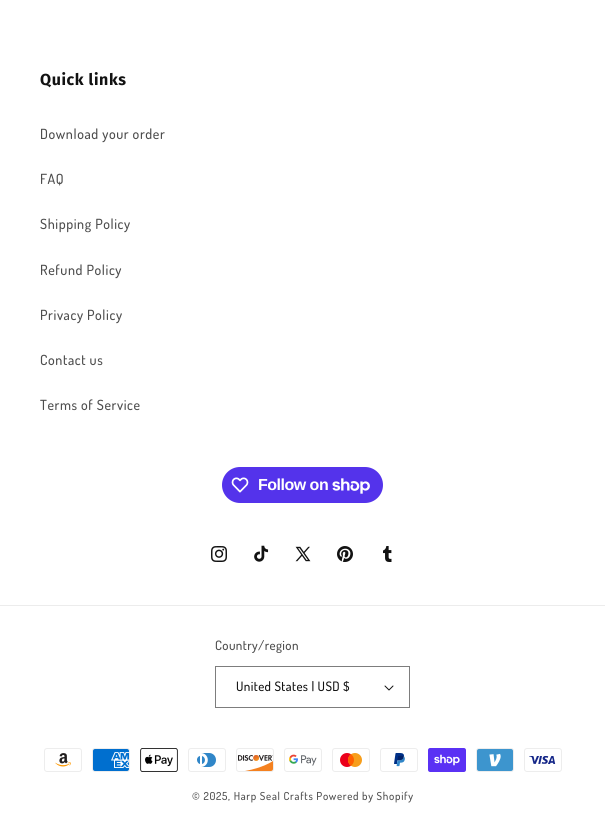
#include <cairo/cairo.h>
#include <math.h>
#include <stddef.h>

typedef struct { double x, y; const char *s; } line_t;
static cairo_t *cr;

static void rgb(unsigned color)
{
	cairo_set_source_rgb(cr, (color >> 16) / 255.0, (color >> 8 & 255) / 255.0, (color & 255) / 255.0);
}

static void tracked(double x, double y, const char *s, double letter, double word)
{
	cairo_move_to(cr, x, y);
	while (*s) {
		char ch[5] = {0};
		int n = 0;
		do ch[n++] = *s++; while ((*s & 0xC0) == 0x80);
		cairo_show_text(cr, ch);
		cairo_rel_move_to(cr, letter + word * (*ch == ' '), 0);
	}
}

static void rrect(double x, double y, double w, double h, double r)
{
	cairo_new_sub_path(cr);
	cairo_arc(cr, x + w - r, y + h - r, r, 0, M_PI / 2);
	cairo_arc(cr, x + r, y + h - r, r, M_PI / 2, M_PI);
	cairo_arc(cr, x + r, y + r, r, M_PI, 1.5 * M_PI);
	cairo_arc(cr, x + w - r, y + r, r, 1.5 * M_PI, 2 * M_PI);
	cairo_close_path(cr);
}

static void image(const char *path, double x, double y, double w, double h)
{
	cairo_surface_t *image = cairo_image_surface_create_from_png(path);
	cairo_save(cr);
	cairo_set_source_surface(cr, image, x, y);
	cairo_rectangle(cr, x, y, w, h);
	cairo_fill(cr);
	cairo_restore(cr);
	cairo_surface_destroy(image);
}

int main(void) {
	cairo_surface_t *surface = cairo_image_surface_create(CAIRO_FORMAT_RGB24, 605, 833);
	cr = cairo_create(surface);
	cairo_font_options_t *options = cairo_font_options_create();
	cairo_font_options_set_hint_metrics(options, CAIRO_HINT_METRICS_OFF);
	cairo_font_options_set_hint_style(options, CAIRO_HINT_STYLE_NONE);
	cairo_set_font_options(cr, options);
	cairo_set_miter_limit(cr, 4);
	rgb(0xffffff);
	cairo_paint(cr);
	rgb(0x5433eb);
	rrect(222, 467, 161, 36, 18);
	cairo_fill(cr);
	image("img/1.png", 231, 477, 18, 16);
	image("img/2.png", 332, 478, 38, 16);
	image("img/3.png", 211, 546, 16, 16);
	image("img/4.png", 254, 545, 15, 17);
	image("img/5.png", 295, 546, 16, 16);
	image("img/6.png", 337, 546, 16, 16);
	image("img/7.png", 383, 546, 9, 16);
	rgb(0xececec);
	cairo_rectangle(cr, 0, 605, 605, 1);
	cairo_fill(cr);
	image("img/8.png", 384, 685, 10, 6);
	cairo_rectangle(cr, 215.5, 666.5, 194, 41);
	rgb(0x7d7d7d);
	cairo_set_line_width(cr, 1);
	cairo_stroke(cr);
	image("img/9.png", 44, 748, 38, 24);
	image("img/10.png", 92, 748, 38, 24);
	image("img/11.png", 140, 748, 38, 24);
	image("img/12.png", 188, 748, 38, 24);
	image("img/13.png", 236, 748, 38, 24);
	image("img/14.png", 284, 748, 38, 24);
	image("img/15.png", 332, 748, 38, 24);
	image("img/16.png", 380, 748, 38, 24);
	image("img/17.png", 428, 748, 38, 24);
	image("img/18.png", 476, 748, 38, 24);
	image("img/19.png", 524, 748, 38, 24);
	cairo_select_font_face(cr, "Fira Sans", CAIRO_FONT_SLANT_NORMAL, CAIRO_FONT_WEIGHT_BOLD);
	cairo_set_font_size(cr, 16);
	rgb(0x121212);
	tracked(40, 85, "Quick links", 0.6, 0);
	cairo_select_font_face(cr, "Dosis Medium", CAIRO_FONT_SLANT_NORMAL, CAIRO_FONT_WEIGHT_NORMAL);
	cairo_set_font_size(cr, 14);
	rgb(0x4d4d4d);
	{
		static const line_t items[] = {
			{40, 139, "Download your order"},
			{40, 184, "FAQ"},
			{40, 229, "Shipping Policy"},
			{40, 275, "Refund Policy"},
			{40, 320, "Privacy Policy"},
			{40, 365, "Contact us"},
			{40, 410, "Terms of Service"},
		};
		for (size_t i = 0; i < sizeof items / sizeof *items; i++) {
			tracked(items[i].x, items[i].y, items[i].s, 0.6, 0);
		}
	}
	cairo_select_font_face(cr, "Liberation Sans", CAIRO_FONT_SLANT_NORMAL, CAIRO_FONT_WEIGHT_BOLD);
	cairo_set_font_size(cr, 16);
	rgb(0xffffff);
	tracked(258, 490, "Follow on", -0.5, 0);
	cairo_select_font_face(cr, "Dosis Medium", CAIRO_FONT_SLANT_NORMAL, CAIRO_FONT_WEIGHT_NORMAL);
	cairo_set_font_size(cr, 13);
	rgb(0x4d4d4d);
	tracked(215, 650, "Country/region", 0.4, 0);
	rgb(0x121212);
	tracked(236, 691, "United States | USD $", 0.4, 0);
	cairo_set_font_size(cr, 11);
	rgb(0x4d4d4d);
	tracked(192, 800, "© 2025, Harp Seal Crafts Powered by Shopify", 0.7, 0);
	cairo_surface_write_to_png(surface, "page.png");
	cairo_font_options_destroy(options);
	cairo_destroy(cr);
	cairo_surface_destroy(surface);
	return 0;
}
